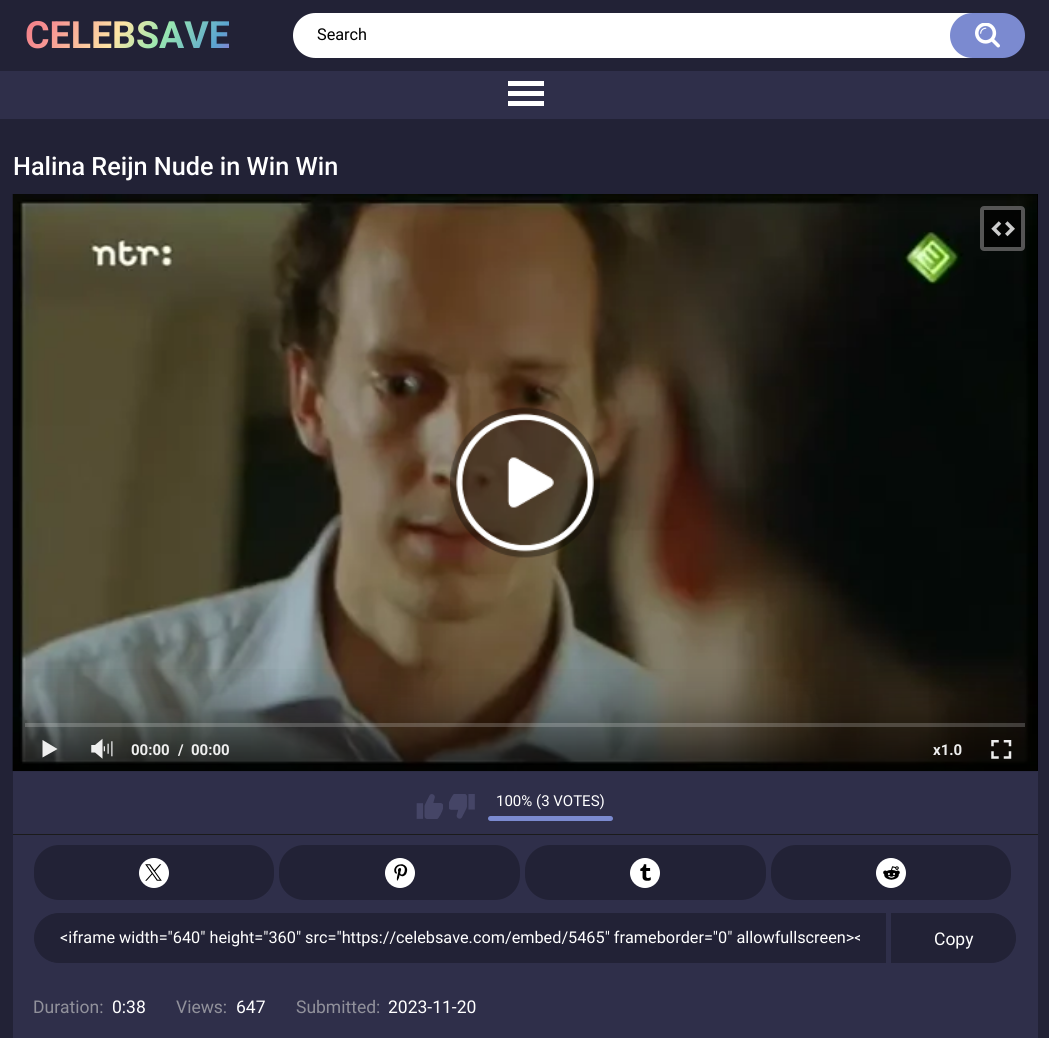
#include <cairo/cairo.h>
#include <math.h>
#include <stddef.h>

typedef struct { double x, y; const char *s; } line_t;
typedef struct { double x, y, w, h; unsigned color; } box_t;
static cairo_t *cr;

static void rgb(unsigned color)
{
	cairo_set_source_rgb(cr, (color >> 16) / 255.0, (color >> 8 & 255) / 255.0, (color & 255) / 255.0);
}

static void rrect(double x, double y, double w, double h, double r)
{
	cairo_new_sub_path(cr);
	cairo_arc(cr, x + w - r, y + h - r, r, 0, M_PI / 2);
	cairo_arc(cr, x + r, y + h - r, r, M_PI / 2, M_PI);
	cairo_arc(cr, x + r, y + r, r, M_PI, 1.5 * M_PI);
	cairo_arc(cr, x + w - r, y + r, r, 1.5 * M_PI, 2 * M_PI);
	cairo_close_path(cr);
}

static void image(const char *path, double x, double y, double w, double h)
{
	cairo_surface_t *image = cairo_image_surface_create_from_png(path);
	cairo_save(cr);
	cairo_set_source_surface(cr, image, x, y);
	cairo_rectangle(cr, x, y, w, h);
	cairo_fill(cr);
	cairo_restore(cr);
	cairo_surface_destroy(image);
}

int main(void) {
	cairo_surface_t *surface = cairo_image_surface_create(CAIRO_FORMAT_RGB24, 1049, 1038);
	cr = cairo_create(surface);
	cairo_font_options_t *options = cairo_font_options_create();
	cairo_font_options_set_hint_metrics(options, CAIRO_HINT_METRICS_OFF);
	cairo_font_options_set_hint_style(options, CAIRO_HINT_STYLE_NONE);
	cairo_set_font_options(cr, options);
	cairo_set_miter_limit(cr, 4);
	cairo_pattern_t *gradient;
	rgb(0x222236);
	cairo_paint(cr);
	rgb(0xffffff);
	rrect(293, 13, 720, 45, 22.5);
	cairo_fill(cr);
	rgb(0x7b8ad0);
	rrect(950, 13, 75, 45, 22.5);
	cairo_fill(cr);
	image("img/1.png", 975, 23, 25, 25);
	{
		static const box_t items[] = {
			{0, 71, 1049, 48, 0x2f2f4a},
			{508, 81, 36, 5, 0xffffff},
			{508, 91, 36, 5, 0xffffff},
			{508, 101, 36, 5, 0xffffff},
			{13, 771, 1025, 267, 0x2f2f4a},
			{1037, 194, 1, 577, 0x000000},
		};
		for (size_t i = 0; i < sizeof items / sizeof *items; i++) {
			rgb(items[i].color);
			cairo_rectangle(cr, items[i].x, items[i].y, items[i].w, items[i].h);
			cairo_fill(cr);
		}
	}
	image("img/2.png", 12, 194, 1025, 578);
	cairo_set_source_rgba(cr, 0, 0, 0, 0.75);
	rrect(982, 208, 41, 41, 2);
	cairo_fill_preserve(cr);
	rgb(0x555555);
	cairo_set_line_width(cr, 4);
	cairo_stroke(cr);
	image("img/3.png", 991, 221, 24, 16);
	image("img/4.png", 450, 407, 150, 151);
	image("img/5.png", 12, 669, 1018, 102);
	cairo_set_source_rgba(cr, 1, 1, 1, 0.2);
	cairo_rectangle(cr, 25, 723, 1000, 4);
	cairo_fill(cr);
	rgb(0xeeeeee);
	cairo_new_path(cr);
	cairo_move_to(cr, 42.5, 740);
	cairo_line_to(cr, 57.5, 749);
	cairo_line_to(cr, 42.5, 757.5);
	cairo_close_path(cr);
	cairo_fill(cr);
	image("img/6.png", 91, 738, 22, 21);
	image("img/7.png", 991, 740, 21, 19);
	rgb(0x1b1b1b);
	cairo_rectangle(cr, 13, 834, 1025, 1);
	cairo_fill(cr);
	image("img/8.png", 416, 794, 27, 25);
	image("img/9.png", 449, 794, 26, 25);
	rgb(0x7b8ad0);
	rrect(488, 816, 125, 5, 2.5);
	cairo_fill(cr);
	rgb(0x222236);
	rrect(34, 845, 240, 55, 25);
	cairo_fill(cr);
	rgb(0xffffff);
	cairo_arc(cr, 154, 873, 15, 0, 2 * M_PI);
	cairo_fill(cr);
	image("img/10.png", 145, 864, 17, 17);
	rgb(0x222236);
	rrect(279, 845, 241, 55, 25);
	cairo_fill(cr);
	rgb(0xffffff);
	cairo_arc(cr, 400, 873, 15, 0, 2 * M_PI);
	cairo_fill(cr);
	image("img/11.png", 394, 864, 14, 17);
	rgb(0x222236);
	rrect(525, 845, 241, 55, 25);
	cairo_fill(cr);
	rgb(0xffffff);
	cairo_arc(cr, 645, 873, 15, 0, 2 * M_PI);
	cairo_fill(cr);
	image("img/12.png", 640, 864, 11, 17);
	rgb(0x222236);
	rrect(771, 845, 240, 55, 25);
	cairo_fill(cr);
	rgb(0xffffff);
	cairo_arc(cr, 891, 873, 15, 0, 2 * M_PI);
	cairo_fill(cr);
	image("img/13.png", 883, 866, 17, 14);
	rgb(0x222236);
	cairo_new_path(cr);
	cairo_move_to(cr, 59, 913.5);
	cairo_line_to(cr, 885.5, 913.5);
	cairo_line_to(cr, 885.5, 962.5);
	cairo_line_to(cr, 59, 962.5);
	cairo_curve_to(cr, 45.5, 962.5, 34.5, 951.5, 34.5, 938);
	cairo_curve_to(cr, 34.5, 924.5, 45.5, 913.5, 59, 913.5);
	cairo_close_path(cr);
	cairo_fill_preserve(cr);
	cairo_set_line_width(cr, 1);
	cairo_stroke(cr);
	cairo_new_path(cr);
	cairo_move_to(cr, 891.5, 913.5);
	cairo_line_to(cr, 991, 913.5);
	cairo_curve_to(cr, 1004.5, 913.5, 1015.5, 924.5, 1015.5, 938);
	cairo_curve_to(cr, 1015.5, 951.5, 1004.5, 962.5, 991, 962.5);
	cairo_line_to(cr, 891.5, 962.5);
	cairo_close_path(cr);
	cairo_fill_preserve(cr);
	cairo_stroke(cr);
	cairo_select_font_face(cr, "Roboto", CAIRO_FONT_SLANT_NORMAL, CAIRO_FONT_WEIGHT_BOLD);
	cairo_set_font_size(cr, 37.5);
	gradient = cairo_pattern_create_linear(44, -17, 211, 87);
	cairo_pattern_add_color_stop_rgba(gradient, 0, 0.945, 0.482, 0.522, 1);
	cairo_pattern_add_color_stop_rgba(gradient, 0.15, 0.969, 0.576, 0.576, 1);
	cairo_pattern_add_color_stop_rgba(gradient, 0.45, 0.996, 0.894, 0.647, 1);
	cairo_pattern_add_color_stop_rgba(gradient, 0.65, 0.604, 0.91, 0.69, 1);
	cairo_pattern_add_color_stop_rgba(gradient, 0.9, 0.357, 0.647, 0.816, 1);
	cairo_pattern_add_color_stop_rgba(gradient, 1, 0.565, 0.471, 0.816, 1);
	cairo_set_source(cr, gradient);
	cairo_pattern_destroy(gradient);
	cairo_move_to(cr, 25, 48);
	cairo_show_text(cr, "CELEBSAVE");
	cairo_select_font_face(cr, "Roboto", CAIRO_FONT_SLANT_NORMAL, CAIRO_FONT_WEIGHT_NORMAL);
	cairo_set_font_size(cr, 16.25);
	rgb(0x000000);
	cairo_move_to(cr, 317, 40);
	cairo_show_text(cr, "Search");
	cairo_select_font_face(cr, "Roboto Medium", CAIRO_FONT_SLANT_NORMAL, CAIRO_FONT_WEIGHT_NORMAL);
	cairo_set_font_size(cr, 25.25);
	rgb(0xffffff);
	cairo_move_to(cr, 13, 175);
	cairo_show_text(cr, "Halina Reijn Nude in Win Win");
	cairo_select_font_face(cr, "Roboto", CAIRO_FONT_SLANT_NORMAL, CAIRO_FONT_WEIGHT_BOLD);
	cairo_set_font_size(cr, 15);
	rgb(0xeeeeee);
	{
		static const line_t items[] = {
			{131, 755, "00:00"},
			{178, 755, "/"},
			{191, 755, "00:00"},
			{933, 755, "x1.0"},
		};
		for (size_t i = 0; i < sizeof items / sizeof *items; i++) {
			cairo_move_to(cr, items[i].x, items[i].y);
			cairo_show_text(cr, items[i].s);
		}
	}
	cairo_select_font_face(cr, "Roboto", CAIRO_FONT_SLANT_NORMAL, CAIRO_FONT_WEIGHT_NORMAL);
	rgb(0xffffff);
	cairo_move_to(cr, 496, 806);
	cairo_show_text(cr, "100% (3 VOTES)");
	cairo_save(cr);
	cairo_rectangle(cr, 60, 929, 800, 19);
	cairo_clip(cr);
	cairo_set_font_size(cr, 16.25);
	cairo_move_to(cr, 60, 943);
	cairo_show_text(cr, "<iframe width=\"640\" height=\"360\" src=\"https://celebsave.com/embed/5465\" frameborder=\"0\" allowfullscreen><");
	cairo_restore(cr);
	cairo_set_font_size(cr, 17.5);
	cairo_move_to(cr, 934, 945);
	cairo_show_text(cr, "Copy");
	rgb(0x91919b);
	cairo_move_to(cr, 33, 1013);
	cairo_show_text(cr, "Duration:");
	rgb(0xffffff);
	cairo_move_to(cr, 112, 1013);
	cairo_show_text(cr, "0:38");
	rgb(0x91919b);
	cairo_move_to(cr, 176, 1013);
	cairo_show_text(cr, "Views:");
	rgb(0xffffff);
	cairo_move_to(cr, 236, 1013);
	cairo_show_text(cr, "647");
	rgb(0x91919b);
	cairo_move_to(cr, 296, 1013);
	cairo_show_text(cr, "Submitted:");
	rgb(0xffffff);
	cairo_move_to(cr, 388, 1013);
	cairo_show_text(cr, "2023-11-20");
	cairo_surface_write_to_png(surface, "page.png");
	cairo_font_options_destroy(options);
	cairo_destroy(cr);
	cairo_surface_destroy(surface);
	return 0;
}
